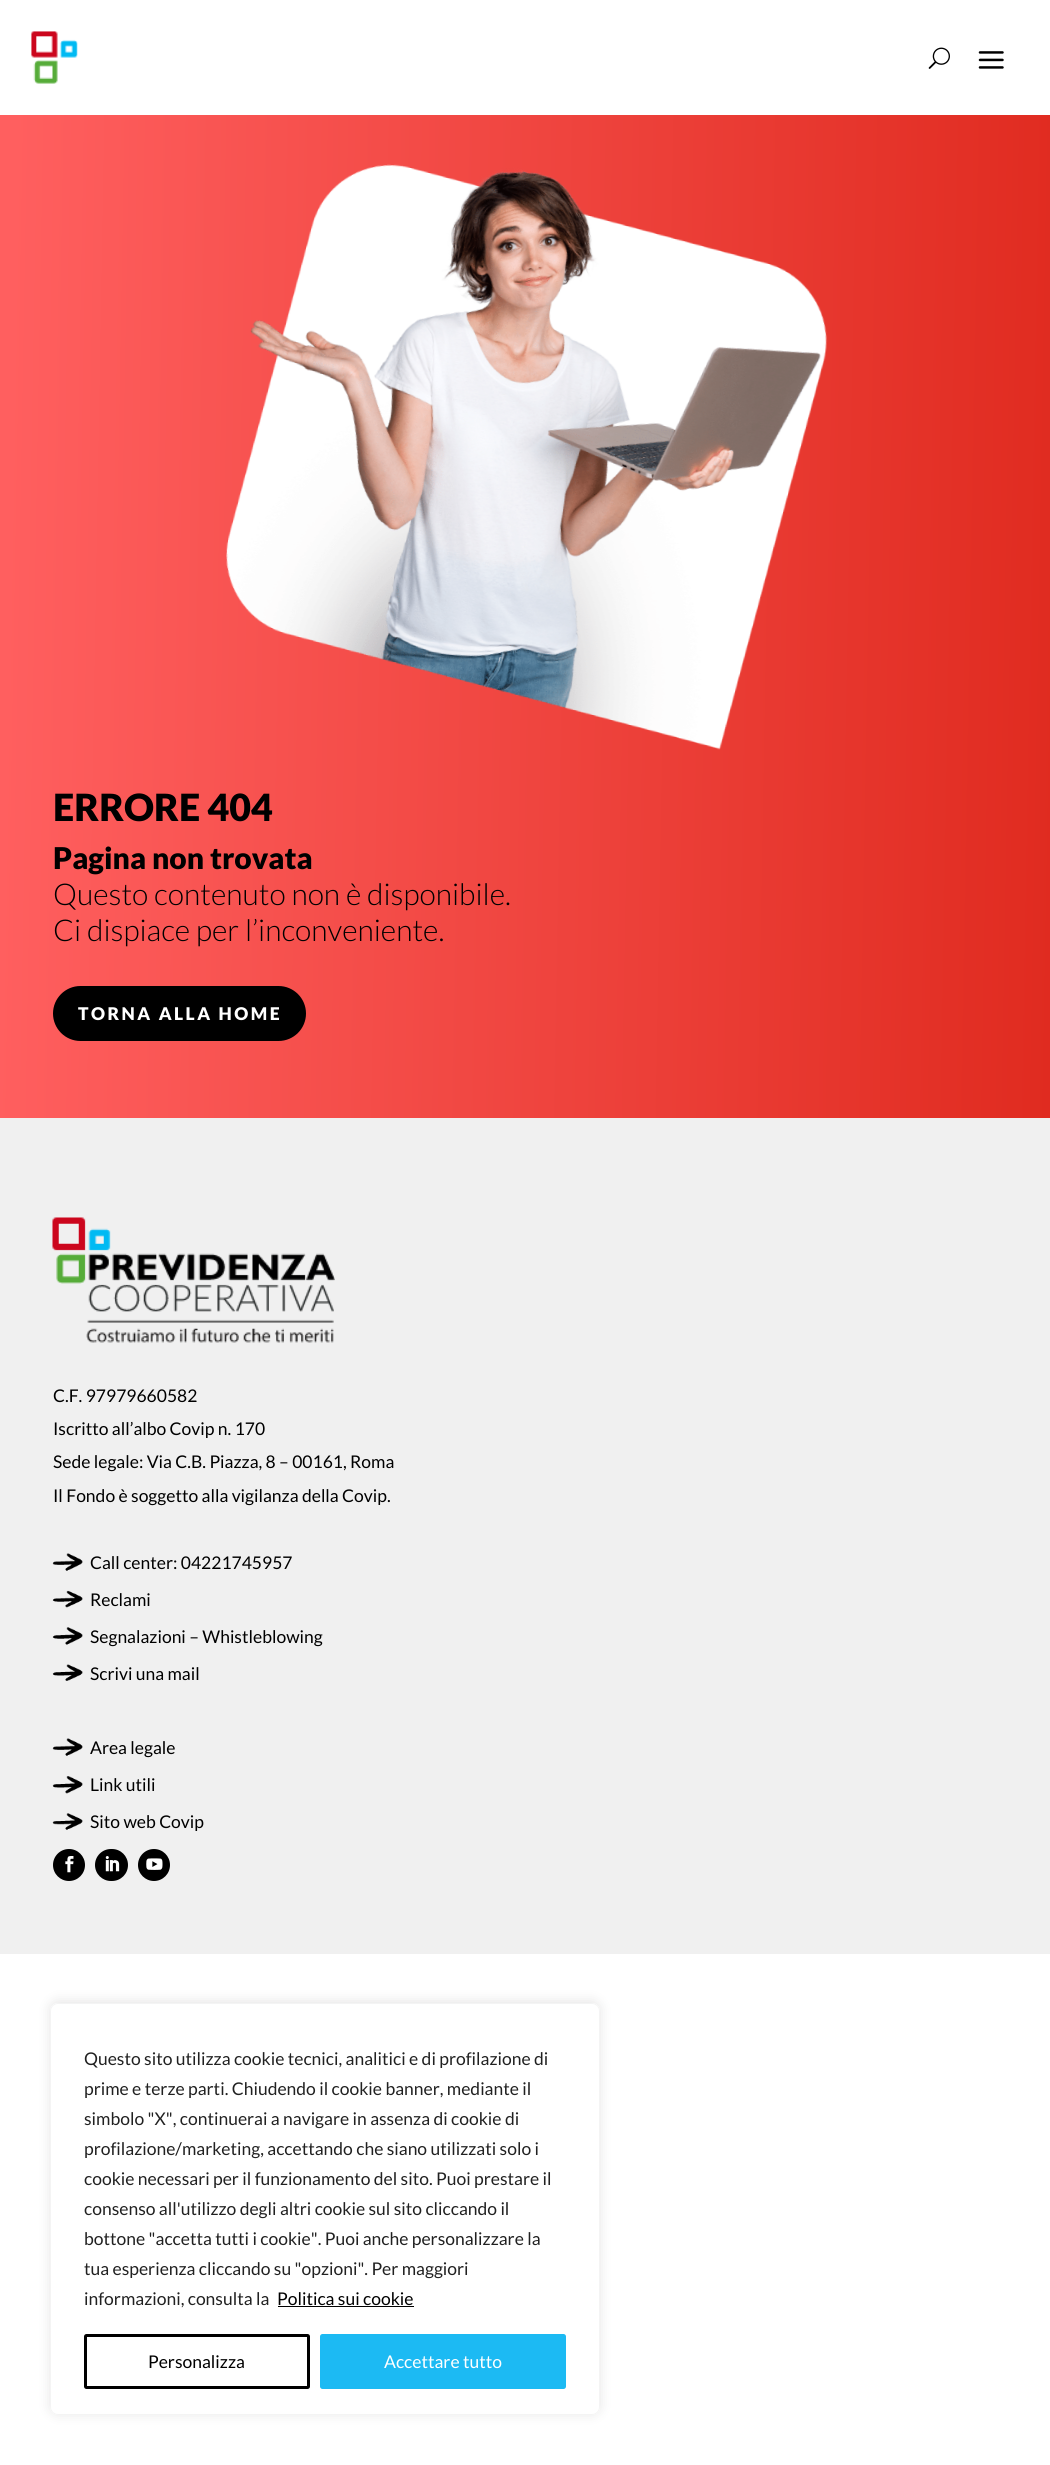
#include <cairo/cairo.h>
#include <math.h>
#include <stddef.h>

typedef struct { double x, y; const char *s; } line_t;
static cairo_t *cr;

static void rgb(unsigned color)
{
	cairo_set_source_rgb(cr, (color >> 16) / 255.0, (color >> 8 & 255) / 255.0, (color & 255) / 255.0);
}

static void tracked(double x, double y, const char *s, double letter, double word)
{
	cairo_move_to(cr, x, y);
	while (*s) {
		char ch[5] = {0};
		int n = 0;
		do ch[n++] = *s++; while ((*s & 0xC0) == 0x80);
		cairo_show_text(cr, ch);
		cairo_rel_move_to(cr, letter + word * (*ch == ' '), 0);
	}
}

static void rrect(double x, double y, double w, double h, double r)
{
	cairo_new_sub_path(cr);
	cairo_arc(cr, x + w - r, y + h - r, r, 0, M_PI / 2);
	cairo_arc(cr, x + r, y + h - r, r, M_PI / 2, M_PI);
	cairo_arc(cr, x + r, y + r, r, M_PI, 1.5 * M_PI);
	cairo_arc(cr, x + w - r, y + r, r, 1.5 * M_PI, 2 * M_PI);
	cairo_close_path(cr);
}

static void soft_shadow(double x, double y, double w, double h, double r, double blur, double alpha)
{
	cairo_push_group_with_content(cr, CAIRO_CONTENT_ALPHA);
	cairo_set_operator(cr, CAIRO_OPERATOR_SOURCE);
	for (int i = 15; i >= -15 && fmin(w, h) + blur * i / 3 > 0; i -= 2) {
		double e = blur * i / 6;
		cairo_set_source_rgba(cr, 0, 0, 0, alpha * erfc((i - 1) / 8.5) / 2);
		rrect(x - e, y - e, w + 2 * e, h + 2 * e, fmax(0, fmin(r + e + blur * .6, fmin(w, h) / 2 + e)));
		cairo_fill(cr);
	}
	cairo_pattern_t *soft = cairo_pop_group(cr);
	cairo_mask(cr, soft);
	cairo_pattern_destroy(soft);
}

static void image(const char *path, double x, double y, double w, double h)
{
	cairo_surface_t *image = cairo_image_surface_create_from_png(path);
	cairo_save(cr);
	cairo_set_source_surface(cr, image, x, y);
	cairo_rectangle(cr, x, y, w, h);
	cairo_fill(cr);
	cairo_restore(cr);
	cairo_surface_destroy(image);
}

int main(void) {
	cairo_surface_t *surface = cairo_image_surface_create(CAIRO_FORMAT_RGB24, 1050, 2465);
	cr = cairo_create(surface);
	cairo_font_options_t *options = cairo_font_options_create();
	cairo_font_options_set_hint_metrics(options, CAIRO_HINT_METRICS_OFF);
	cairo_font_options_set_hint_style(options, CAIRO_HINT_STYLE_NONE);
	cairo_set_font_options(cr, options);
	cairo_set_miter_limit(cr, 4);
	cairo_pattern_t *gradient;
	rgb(0xffffff);
	cairo_paint(cr);
	image("img/1.png", 31, 31, 47, 53);
	image("img/2.png", 928, 47, 22, 22);
	image("img/3.png", 978, 51, 26, 18);
	gradient = cairo_pattern_create_linear(-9, 607, 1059, 626);
	cairo_pattern_add_color_stop_rgba(gradient, 0.01, 1, 0.373, 0.373, 1);
	cairo_pattern_add_color_stop_rgba(gradient, 1, 0.878, 0.169, 0.125, 1);
	cairo_set_source(cr, gradient);
	cairo_pattern_destroy(gradient);
	cairo_rectangle(cr, 0, 115, 1050, 1003);
	cairo_fill(cr);
	image("img/4.png", 226, 164, 602, 586);
	rgb(0x000000);
	rrect(53, 986, 253, 55, 27.5);
	cairo_fill(cr);
	rgb(0xf0f0f0);
	cairo_rectangle(cr, 0, 1118, 1050, 836);
	cairo_fill(cr);
	image("img/5.png", 52, 1217, 283, 126);
	image("img/6.png", 52, 1553, 31, 18);
	image("img/7.png", 52, 1590, 31, 18);
	image("img/8.png", 52, 1627, 31, 18);
	image("img/9.png", 52, 1664, 31, 17);
	image("img/6.png", 52, 1738, 31, 18);
	image("img/10.png", 52, 1776, 31, 18);
	image("img/11.png", 52, 1813, 31, 17);
	rgb(0x000000);
	cairo_arc(cr, 69, 1865, 16, 0, 2 * M_PI);
	cairo_fill(cr);
	image("img/12.png", 65, 1856, 9, 17);
	rrect(95, 1849, 33, 32, 16);
	cairo_fill(cr);
	image("img/13.png", 105, 1856, 15, 16);
	cairo_arc(cr, 154, 1865, 16, 0, 2 * M_PI);
	cairo_fill(cr);
	image("img/14.png", 146, 1858, 17, 12);
	cairo_save(cr);
	cairo_set_fill_rule(cr, CAIRO_FILL_RULE_EVEN_ODD);
	cairo_new_path(cr);
	cairo_move_to(cr, 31, 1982);
	cairo_line_to(cr, 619, 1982);
	cairo_line_to(cr, 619, 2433);
	cairo_line_to(cr, 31, 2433);
	cairo_close_path(cr);
	cairo_move_to(cr, 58, 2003);
	cairo_line_to(cr, 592, 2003);
	cairo_curve_to(cr, 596.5, 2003, 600, 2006.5, 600, 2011);
	cairo_line_to(cr, 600, 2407);
	cairo_curve_to(cr, 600, 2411.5, 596.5, 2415, 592, 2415);
	cairo_line_to(cr, 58, 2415);
	cairo_curve_to(cr, 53.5, 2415, 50, 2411.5, 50, 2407);
	cairo_line_to(cr, 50, 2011);
	cairo_curve_to(cr, 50, 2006.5, 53.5, 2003, 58, 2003);
	cairo_close_path(cr);
	cairo_clip(cr);
	rgb(0xacabab);
	soft_shadow(50, 2001, 550, 413, 8, 6, 0.3);
	cairo_restore(cr);
	rrect(50.5, 2003.5, 549, 411, 7.5);
	rgb(0xf4f4f4);
	cairo_set_line_width(cr, 1);
	cairo_stroke(cr);
	rgb(0x000000);
	cairo_rectangle(cr, 278, 2306, 136, 1);
	cairo_fill(cr);
	rrect(85.5, 2335.5, 223, 52, 1);
	cairo_set_line_width(cr, 3);
	cairo_stroke(cr);
	rgb(0x1cbaf3);
	rrect(321.5, 2335.5, 243, 52, 1);
	cairo_fill_preserve(cr);
	cairo_stroke(cr);
	cairo_select_font_face(cr, "Lato Black", CAIRO_FONT_SLANT_NORMAL, CAIRO_FONT_WEIGHT_NORMAL);
	cairo_set_font_size(cr, 37.5);
	rgb(0x000000);
	cairo_move_to(cr, 53, 821);
	cairo_show_text(cr, "ERRORE 404");
	cairo_set_font_size(cr, 30);
	cairo_move_to(cr, 53, 869);
	cairo_show_text(cr, "Pagina non trovata");
	cairo_select_font_face(cr, "Lato Light", CAIRO_FONT_SLANT_NORMAL, CAIRO_FONT_WEIGHT_NORMAL);
	cairo_move_to(cr, 53, 905);
	cairo_show_text(cr, "Questo contenuto non è disponibile.");
	cairo_move_to(cr, 53, 941);
	cairo_show_text(cr, "Ci dispiace per l’inconveniente.");
	cairo_select_font_face(cr, "Lato Black", CAIRO_FONT_SLANT_NORMAL, CAIRO_FONT_WEIGHT_NORMAL);
	cairo_set_font_size(cr, 17.5);
	rgb(0xffffff);
	tracked(78, 1020, "TORNA ALLA HOME", 2.5, 0);
	cairo_select_font_face(cr, "Lato", CAIRO_FONT_SLANT_NORMAL, CAIRO_FONT_WEIGHT_NORMAL);
	rgb(0x000000);
	{
		static const line_t items[] = {
			{53, 1402, "C.F. 97979660582"},
			{53, 1435, "Iscritto all’albo Covip n. 170"},
			{53, 1468, "Sede legale: Via C.B. Piazza, 8 – 00161, Roma"},
			{53, 1502, "Il Fondo è soggetto alla vigilanza della Covip."},
			{90, 1569, "Call center: 04221745957"},
			{90, 1606, "Reclami"},
			{90, 1643, "Segnalazioni – Whistleblowing"},
			{90, 1680, "Scrivi una mail"},
			{90, 1754, "Area legale"},
			{90, 1791, "Link utili"},
			{90, 1828, "Sito web Covip"},
		};
		for (size_t i = 0; i < sizeof items / sizeof *items; i++) {
			cairo_move_to(cr, items[i].x, items[i].y);
			cairo_show_text(cr, items[i].s);
		}
	}
	rgb(0x212121);
	{
		static const line_t items[] = {
			{84, 2065, "Questo sito utilizza cookie tecnici, analitici e di profilazione di"},
			{84, 2095, "prime e terze parti. Chiudendo il cookie banner, mediante il"},
			{84, 2125, "simbolo \"X\", continuerai a navigare in assenza di cookie di"},
			{84, 2155, "profilazione/marketing, accettando che siano utilizzati solo i"},
			{84, 2185, "cookie necessari per il funzionamento del sito. Puoi prestare il"},
			{84, 2215, "consenso all'utilizzo degli altri cookie sul sito cliccando il"},
			{84, 2245, "bottone \"accetta tutti i cookie\". Puoi anche personalizzare la"},
			{84, 2275, "tua esperienza cliccando su \"opzioni\". Per maggiori"},
			{84, 2305, "informazioni, consulta la"},
		};
		for (size_t i = 0; i < sizeof items / sizeof *items; i++) {
			cairo_move_to(cr, items[i].x, items[i].y);
			cairo_show_text(cr, items[i].s);
		}
	}
	rgb(0x000000);
	cairo_move_to(cr, 277, 2305);
	cairo_show_text(cr, "Politica sui cookie");
	cairo_move_to(cr, 148, 2368);
	cairo_show_text(cr, "Personalizza");
	rgb(0xffffff);
	cairo_move_to(cr, 384, 2368);
	cairo_show_text(cr, "Accettare tutto");
	cairo_surface_write_to_png(surface, "page.png");
	cairo_font_options_destroy(options);
	cairo_destroy(cr);
	cairo_surface_destroy(surface);
	return 0;
}
